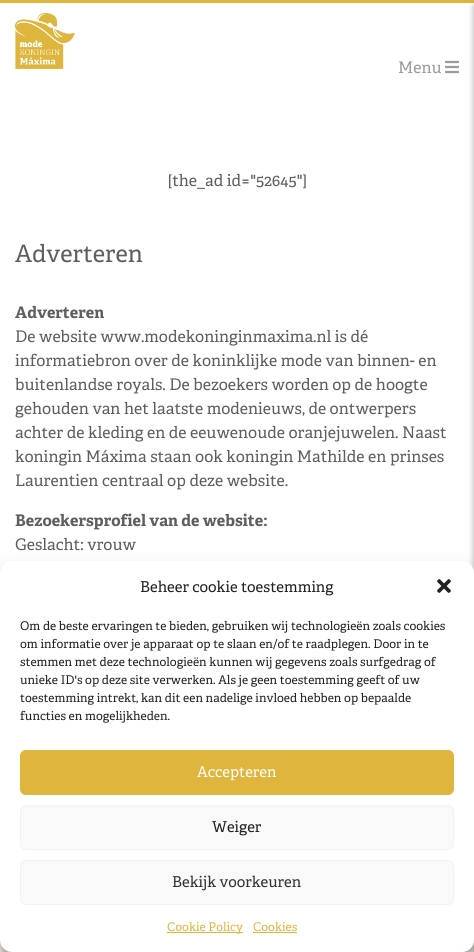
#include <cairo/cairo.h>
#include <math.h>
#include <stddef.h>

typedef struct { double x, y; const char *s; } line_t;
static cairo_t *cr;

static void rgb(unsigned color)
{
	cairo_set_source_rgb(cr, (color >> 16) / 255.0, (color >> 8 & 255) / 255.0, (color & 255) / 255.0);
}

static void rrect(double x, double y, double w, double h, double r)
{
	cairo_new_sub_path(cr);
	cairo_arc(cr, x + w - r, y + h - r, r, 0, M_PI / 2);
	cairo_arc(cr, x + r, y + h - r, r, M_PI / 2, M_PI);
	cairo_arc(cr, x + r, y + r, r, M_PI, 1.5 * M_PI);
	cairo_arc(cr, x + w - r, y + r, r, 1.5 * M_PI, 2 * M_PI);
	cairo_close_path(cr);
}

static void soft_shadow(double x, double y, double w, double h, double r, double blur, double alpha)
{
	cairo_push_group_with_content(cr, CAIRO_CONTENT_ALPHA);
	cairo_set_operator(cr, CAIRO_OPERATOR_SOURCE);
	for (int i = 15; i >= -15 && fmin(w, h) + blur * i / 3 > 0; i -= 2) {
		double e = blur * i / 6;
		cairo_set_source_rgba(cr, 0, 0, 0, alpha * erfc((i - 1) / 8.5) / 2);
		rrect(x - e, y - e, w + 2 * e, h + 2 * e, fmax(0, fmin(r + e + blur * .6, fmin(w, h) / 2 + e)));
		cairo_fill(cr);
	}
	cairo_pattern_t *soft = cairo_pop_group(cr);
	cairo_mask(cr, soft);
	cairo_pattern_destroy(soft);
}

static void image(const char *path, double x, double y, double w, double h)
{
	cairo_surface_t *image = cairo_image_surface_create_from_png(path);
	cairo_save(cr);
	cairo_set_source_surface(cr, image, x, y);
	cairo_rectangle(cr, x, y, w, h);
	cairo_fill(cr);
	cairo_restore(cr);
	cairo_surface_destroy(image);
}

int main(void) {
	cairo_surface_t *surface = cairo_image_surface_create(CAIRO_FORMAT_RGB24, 474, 952);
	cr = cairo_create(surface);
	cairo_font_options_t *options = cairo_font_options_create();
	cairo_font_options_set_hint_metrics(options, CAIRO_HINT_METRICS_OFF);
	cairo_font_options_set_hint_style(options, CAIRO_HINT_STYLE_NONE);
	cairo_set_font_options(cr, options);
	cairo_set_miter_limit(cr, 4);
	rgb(0xffffff);
	cairo_paint(cr);
	rgb(0xdfb53d);
	cairo_rectangle(cr, 0, 0, 474, 3);
	cairo_fill(cr);
	image("img/1.png", 15, 13, 60, 56);
	image("img/2.png", 445, 60, 14, 14);
	rgb(0xfef7e9);
	cairo_rectangle(cr, 0, 940, 474, 12);
	cairo_fill(cr);
	rgb(0x000000);
	soft_shadow(474, 6, 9, 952, 0, 3, 0.36);
	soft_shadow(0, 567, 474, 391, 12, 3, 0.23);
	soft_shadow(0, 571, 474, 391, 12, 10, 0.19);
	rgb(0xffffff);
	rrect(0, 561, 474, 391, 12);
	cairo_fill(cr);
	image("img/3.png", 437, 579, 14, 14);
	rgb(0xdfb53d);
	rrect(20.5, 750.5, 433, 44, 5.5);
	cairo_fill_preserve(cr);
	cairo_set_line_width(cr, 1);
	cairo_stroke(cr);
	rgb(0xf9f9f9);
	rrect(20.5, 805.5, 433, 44, 5.5);
	cairo_fill_preserve(cr);
	rgb(0xf2f2f2);
	cairo_stroke(cr);
	rgb(0xf9f9f9);
	rrect(20.5, 860.5, 433, 44, 5.5);
	cairo_fill_preserve(cr);
	rgb(0xf2f2f2);
	cairo_stroke(cr);
	rgb(0xdfb53d);
	cairo_rectangle(cr, 167, 932, 76, 1);
	cairo_fill(cr);
	cairo_rectangle(cr, 253, 932, 44, 1);
	cairo_fill(cr);
	cairo_select_font_face(cr, "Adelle", CAIRO_FONT_SLANT_NORMAL, CAIRO_FONT_WEIGHT_NORMAL);
	cairo_set_font_size(cr, 16);
	rgb(0x9b9b9b);
	cairo_move_to(cr, 398, 73);
	cairo_show_text(cr, "Menu");
	rgb(0x5e5e5e);
	cairo_move_to(cr, 168, 186);
	cairo_show_text(cr, "[the_ad id=\"52645\"]");
	cairo_set_font_size(cr, 24);
	cairo_move_to(cr, 15, 262);
	cairo_show_text(cr, "Adverteren");
	cairo_select_font_face(cr, "Adelle", CAIRO_FONT_SLANT_NORMAL, CAIRO_FONT_WEIGHT_BOLD);
	cairo_set_font_size(cr, 16);
	cairo_move_to(cr, 15, 318);
	cairo_show_text(cr, "Adverteren");
	cairo_select_font_face(cr, "Adelle", CAIRO_FONT_SLANT_NORMAL, CAIRO_FONT_WEIGHT_NORMAL);
	{
		static const line_t items[] = {
			{15, 342, "De website www.modekoninginmaxima.nl is dé"},
			{15, 366, "informatiebron over de koninklijke mode van binnen- en"},
			{15, 390, "buitenlandse royals. De bezoekers worden op de hoogte"},
			{15, 414, "gehouden van het laatste modenieuws, de ontwerpers"},
			{15, 438, "achter de kleding en de eeuwenoude oranjejuwelen. Naast"},
			{15, 462, "koningin Máxima staan ook koningin Mathilde en prinses"},
			{15, 486, "Laurentien centraal op deze website."},
		};
		for (size_t i = 0; i < sizeof items / sizeof *items; i++) {
			cairo_move_to(cr, items[i].x, items[i].y);
			cairo_show_text(cr, items[i].s);
		}
	}
	cairo_select_font_face(cr, "Adelle", CAIRO_FONT_SLANT_NORMAL, CAIRO_FONT_WEIGHT_BOLD);
	cairo_move_to(cr, 15, 526);
	cairo_show_text(cr, "Bezoekersprofiel van de website:");
	cairo_select_font_face(cr, "Adelle", CAIRO_FONT_SLANT_NORMAL, CAIRO_FONT_WEIGHT_NORMAL);
	cairo_move_to(cr, 15, 550);
	cairo_show_text(cr, "Geslacht: vrouw");
	cairo_set_font_size(cr, 15);
	rgb(0x222222);
	cairo_move_to(cr, 140, 592);
	cairo_show_text(cr, "Beheer cookie toestemming");
	cairo_set_font_size(cr, 12);
	{
		static const line_t items[] = {
			{20, 630, "Om de beste ervaringen te bieden, gebruiken wij technologieën zoals cookies"},
			{20, 648, "om informatie over je apparaat op te slaan en/of te raadplegen. Door in te"},
			{20, 666, "stemmen met deze technologieën kunnen wij gegevens zoals surfgedrag of"},
			{20, 684, "unieke ID's op deze site verwerken. Als je geen toestemming geeft of uw"},
			{20, 702, "toestemming intrekt, kan dit een nadelige invloed hebben op bepaalde"},
			{20, 720, "functies en mogelijkheden."},
		};
		for (size_t i = 0; i < sizeof items / sizeof *items; i++) {
			cairo_move_to(cr, items[i].x, items[i].y);
			cairo_show_text(cr, items[i].s);
		}
	}
	cairo_set_font_size(cr, 15);
	rgb(0xffffff);
	cairo_move_to(cr, 197, 777);
	cairo_show_text(cr, "Accepteren");
	rgb(0x222222);
	cairo_move_to(cr, 212, 832);
	cairo_show_text(cr, "Weiger");
	rgb(0x333333);
	cairo_move_to(cr, 172, 887);
	cairo_show_text(cr, "Bekijk voorkeuren");
	cairo_set_font_size(cr, 12);
	rgb(0xdfb53d);
	cairo_move_to(cr, 167, 931);
	cairo_show_text(cr, "Cookie Policy");
	cairo_move_to(cr, 253, 931);
	cairo_show_text(cr, "Cookies");
	cairo_surface_write_to_png(surface, "page.png");
	cairo_font_options_destroy(options);
	cairo_destroy(cr);
	cairo_surface_destroy(surface);
	return 0;
}
